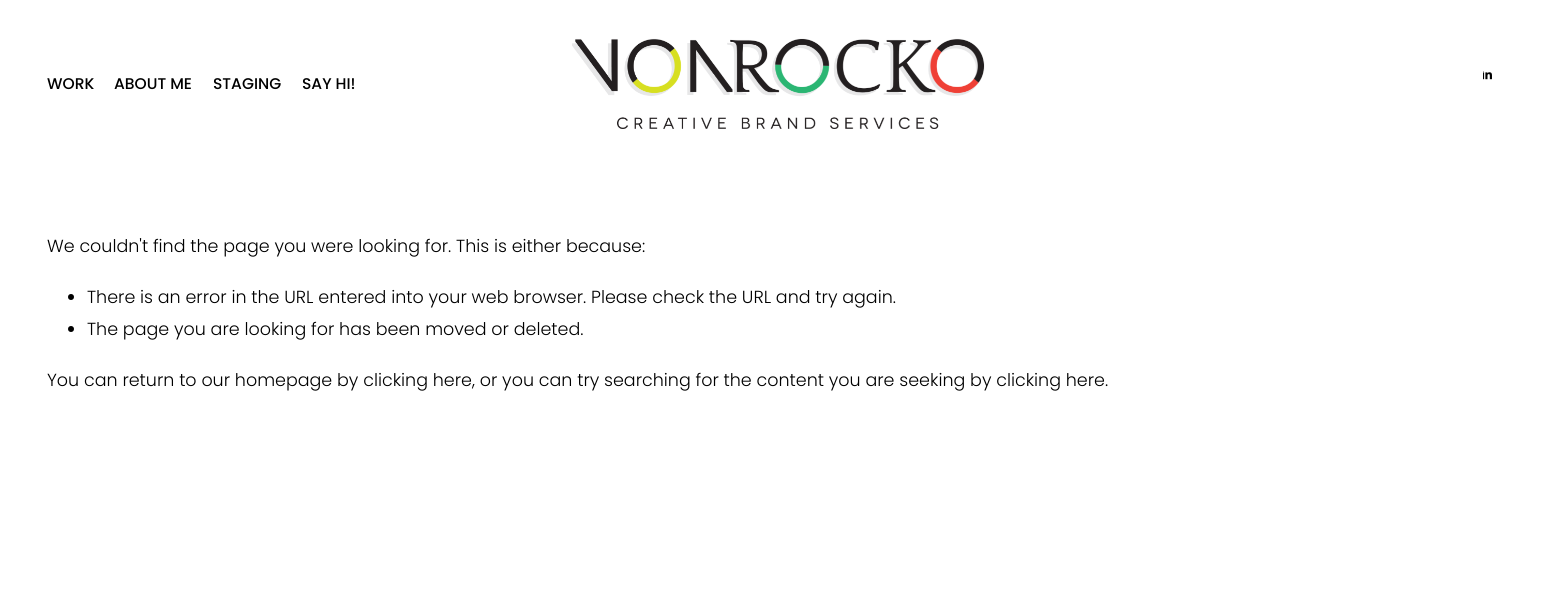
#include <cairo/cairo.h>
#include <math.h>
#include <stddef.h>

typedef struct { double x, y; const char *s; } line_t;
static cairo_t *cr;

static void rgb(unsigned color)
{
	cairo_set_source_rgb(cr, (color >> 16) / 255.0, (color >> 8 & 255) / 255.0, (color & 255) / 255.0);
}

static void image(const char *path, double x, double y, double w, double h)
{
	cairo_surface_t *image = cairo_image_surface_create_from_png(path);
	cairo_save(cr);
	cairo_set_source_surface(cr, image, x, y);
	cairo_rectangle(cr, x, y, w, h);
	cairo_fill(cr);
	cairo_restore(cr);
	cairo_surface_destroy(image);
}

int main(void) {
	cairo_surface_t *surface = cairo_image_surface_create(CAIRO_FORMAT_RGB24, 1555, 592);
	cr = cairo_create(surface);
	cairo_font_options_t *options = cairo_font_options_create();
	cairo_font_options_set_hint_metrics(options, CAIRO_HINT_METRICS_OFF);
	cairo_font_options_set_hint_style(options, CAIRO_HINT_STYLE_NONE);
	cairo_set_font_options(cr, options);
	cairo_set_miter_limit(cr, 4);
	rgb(0xffffff);
	cairo_paint(cr);
	image("img/1.png", 1483, 71, 9, 9);
	image("img/2.png", 572, 38, 413, 91);
	rgb(0x000000);
	cairo_arc(cr, 71, 297, 3, 0, 2 * M_PI);
	cairo_fill(cr);
	cairo_arc(cr, 71, 329, 3, 0, 2 * M_PI);
	cairo_fill(cr);
	cairo_select_font_face(cr, "Poppins Medium", CAIRO_FONT_SLANT_NORMAL, CAIRO_FONT_WEIGHT_NORMAL);
	cairo_set_font_size(cr, 15.5);
	{
		static const line_t items[] = {
			{47, 89, "WORK"},
			{114, 89, "ABOUT ME"},
			{213, 89, "STAGING"},
			{302, 89, "SAY HI!"},
		};
		for (size_t i = 0; i < sizeof items / sizeof *items; i++) {
			cairo_move_to(cr, items[i].x, items[i].y);
			cairo_show_text(cr, items[i].s);
		}
	}
	cairo_select_font_face(cr, "Poppins Light", CAIRO_FONT_SLANT_NORMAL, CAIRO_FONT_WEIGHT_NORMAL);
	cairo_set_font_size(cr, 17.5);
	{
		static const line_t items[] = {
			{47, 252, "We couldn't find the page you were looking for. This is either because:"},
			{87, 303, "There is an error in the URL entered into your web browser. Please check the URL and try again."},
			{87, 335, "The page you are looking for has been moved or deleted."},
			{47, 386, "You can return to our homepage by clicking here, or you can try searching for the content you are seeking by clicking here."},
		};
		for (size_t i = 0; i < sizeof items / sizeof *items; i++) {
			cairo_move_to(cr, items[i].x, items[i].y);
			cairo_show_text(cr, items[i].s);
		}
	}
	cairo_surface_write_to_png(surface, "page.png");
	cairo_font_options_destroy(options);
	cairo_destroy(cr);
	cairo_surface_destroy(surface);
	return 0;
}
